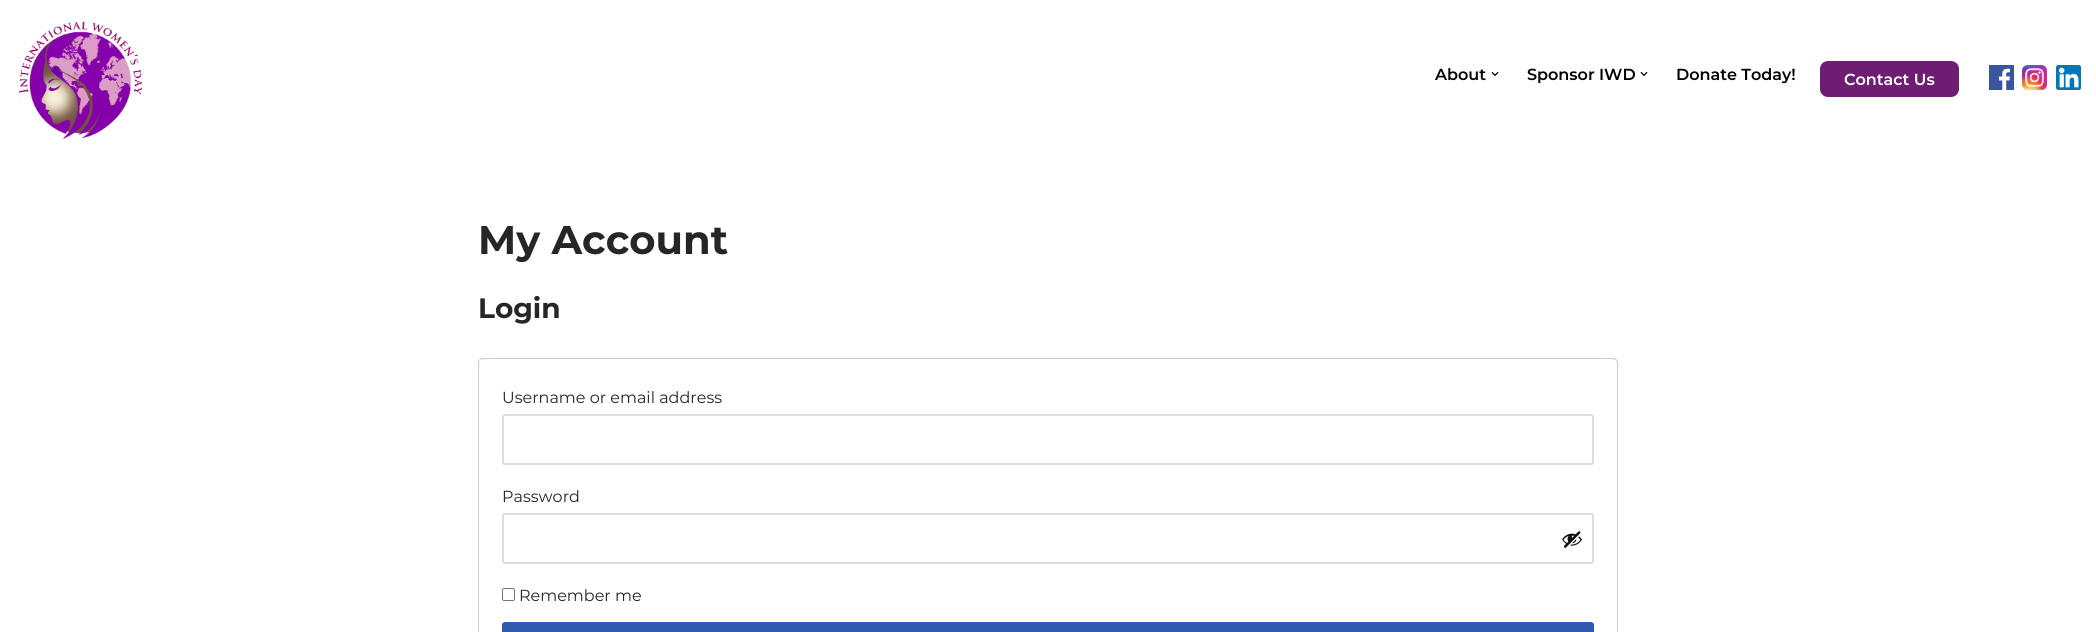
#include <cairo/cairo.h>
#include <math.h>
#include <stddef.h>

typedef struct { double x, y; const char *s; } line_t;
static cairo_t *cr;

static void rgb(unsigned color)
{
	cairo_set_source_rgb(cr, (color >> 16) / 255.0, (color >> 8 & 255) / 255.0, (color & 255) / 255.0);
}

static void rrect(double x, double y, double w, double h, double r)
{
	cairo_new_sub_path(cr);
	cairo_arc(cr, x + w - r, y + h - r, r, 0, M_PI / 2);
	cairo_arc(cr, x + r, y + h - r, r, M_PI / 2, M_PI);
	cairo_arc(cr, x + r, y + r, r, M_PI, 1.5 * M_PI);
	cairo_arc(cr, x + w - r, y + r, r, 1.5 * M_PI, 2 * M_PI);
	cairo_close_path(cr);
}

static void image(const char *path, double x, double y, double w, double h)
{
	cairo_surface_t *image = cairo_image_surface_create_from_png(path);
	cairo_save(cr);
	cairo_set_source_surface(cr, image, x, y);
	cairo_rectangle(cr, x, y, w, h);
	cairo_fill(cr);
	cairo_restore(cr);
	cairo_surface_destroy(image);
}

int main(void) {
	cairo_surface_t *surface = cairo_image_surface_create(CAIRO_FORMAT_RGB24, 2096, 632);
	cr = cairo_create(surface);
	cairo_font_options_t *options = cairo_font_options_create();
	cairo_font_options_set_hint_metrics(options, CAIRO_HINT_METRICS_OFF);
	cairo_font_options_set_hint_style(options, CAIRO_HINT_STYLE_NONE);
	cairo_set_font_options(cr, options);
	cairo_set_miter_limit(cr, 4);
	rgb(0xffffff);
	cairo_paint(cr);
	image("img/1.png", 18, 21, 125, 119);
	image("img/2.png", 1491, 72, 8, 4);
	image("img/2.png", 1640, 72, 8, 4);
	rgb(0x6f1d72);
	rrect(1820, 61, 139, 36, 8);
	cairo_fill(cr);
	image("img/3.png", 1989, 65, 25, 25);
	image("img/4.png", 2022, 65, 25, 25);
	image("img/5.png", 2056, 65, 25, 25);
	rrect(478.5, 358.5, 1139, 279, 4.5);
	rgb(0xcfc8d8);
	cairo_set_line_width(cr, 1);
	cairo_stroke(cr);
	rrect(503, 415, 1090, 49, 2);
	rgb(0xdddddd);
	cairo_set_line_width(cr, 2);
	cairo_stroke(cr);
	rrect(503, 514, 1090, 49, 2);
	cairo_stroke(cr);
	image("img/6.png", 1562, 531, 20, 17);
	rrect(502.5, 588.5, 12, 12, 1.5);
	rgb(0x767676);
	cairo_set_line_width(cr, 1);
	cairo_stroke(cr);
	rgb(0x2f5aae);
	rrect(502, 622, 1092, 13, 3);
	cairo_fill(cr);
	cairo_select_font_face(cr, "Montserrat SemiBold", CAIRO_FONT_SLANT_NORMAL, CAIRO_FONT_WEIGHT_NORMAL);
	cairo_set_font_size(cr, 16);
	rgb(0x000000);
	{
		static const line_t items[] = {
			{1435, 80, "About"},
			{1527, 80, "Sponsor IWD"},
			{1676, 80, "Donate Today!"},
		};
		for (size_t i = 0; i < sizeof items / sizeof *items; i++) {
			cairo_move_to(cr, items[i].x, items[i].y);
			cairo_show_text(cr, items[i].s);
		}
	}
	rgb(0xffffff);
	cairo_move_to(cr, 1844, 85);
	cairo_show_text(cr, "Contact Us");
	cairo_select_font_face(cr, "Montserrat", CAIRO_FONT_SLANT_NORMAL, CAIRO_FONT_WEIGHT_BOLD);
	cairo_set_font_size(cr, 40);
	rgb(0x272626);
	cairo_move_to(cr, 478, 254);
	cairo_show_text(cr, "My Account");
	cairo_set_font_size(cr, 28);
	cairo_move_to(cr, 478, 318);
	cairo_show_text(cr, "Login");
	cairo_select_font_face(cr, "Montserrat", CAIRO_FONT_SLANT_NORMAL, CAIRO_FONT_WEIGHT_NORMAL);
	cairo_set_font_size(cr, 16);
	{
		static const line_t items[] = {
			{502, 403, "Username or email address"},
			{502, 502, "Password"},
			{519, 601, "Remember me"},
		};
		for (size_t i = 0; i < sizeof items / sizeof *items; i++) {
			cairo_move_to(cr, items[i].x, items[i].y);
			cairo_show_text(cr, items[i].s);
		}
	}
	cairo_surface_write_to_png(surface, "page.png");
	cairo_font_options_destroy(options);
	cairo_destroy(cr);
	cairo_surface_destroy(surface);
	return 0;
}
